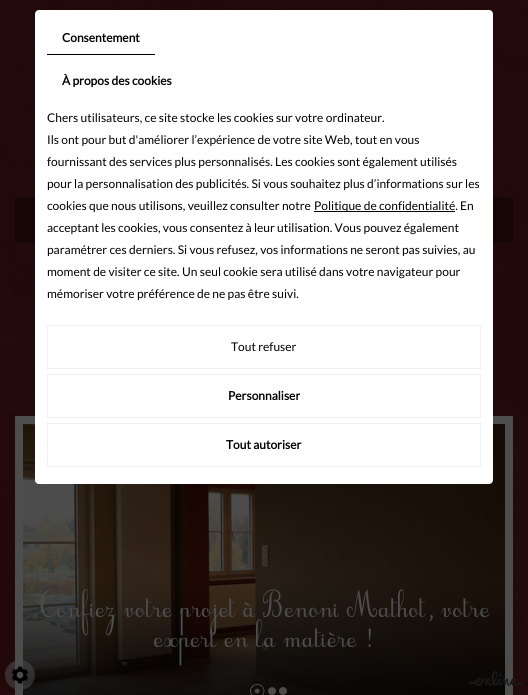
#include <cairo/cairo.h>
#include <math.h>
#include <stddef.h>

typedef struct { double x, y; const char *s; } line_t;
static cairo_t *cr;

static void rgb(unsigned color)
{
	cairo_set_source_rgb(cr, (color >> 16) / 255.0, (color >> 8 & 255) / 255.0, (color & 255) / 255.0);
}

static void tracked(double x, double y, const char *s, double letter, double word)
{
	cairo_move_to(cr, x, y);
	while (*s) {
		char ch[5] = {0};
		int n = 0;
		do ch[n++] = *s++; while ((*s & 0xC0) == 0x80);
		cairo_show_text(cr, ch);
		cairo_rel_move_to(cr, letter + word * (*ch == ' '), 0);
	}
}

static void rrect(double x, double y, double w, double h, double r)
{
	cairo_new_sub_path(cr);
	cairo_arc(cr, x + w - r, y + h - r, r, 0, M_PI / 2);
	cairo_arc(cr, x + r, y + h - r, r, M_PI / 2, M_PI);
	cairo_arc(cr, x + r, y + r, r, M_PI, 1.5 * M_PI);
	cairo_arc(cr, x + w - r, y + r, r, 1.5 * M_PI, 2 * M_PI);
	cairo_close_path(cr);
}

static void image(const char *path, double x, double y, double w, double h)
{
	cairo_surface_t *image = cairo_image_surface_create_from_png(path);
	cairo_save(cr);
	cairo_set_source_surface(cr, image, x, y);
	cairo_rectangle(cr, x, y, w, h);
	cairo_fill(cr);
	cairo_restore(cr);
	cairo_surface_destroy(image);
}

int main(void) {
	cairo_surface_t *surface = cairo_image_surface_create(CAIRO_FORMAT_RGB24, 528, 695);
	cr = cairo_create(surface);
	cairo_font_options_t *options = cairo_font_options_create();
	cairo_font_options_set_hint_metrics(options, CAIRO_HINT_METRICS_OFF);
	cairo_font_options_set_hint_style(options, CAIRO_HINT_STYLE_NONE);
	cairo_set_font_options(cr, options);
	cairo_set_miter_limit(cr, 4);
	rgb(0xffffff);
	cairo_paint(cr);
	image("img/1.png", 0, 0, 528, 695);
	rgb(0x180505);
	cairo_rectangle(cr, 15, 198, 498, 44);
	cairo_fill(cr);
	rgb(0x4d4d4d);
	cairo_rectangle(cr, 15, 416, 498, 279);
	cairo_fill(cr);
	image("img/2.png", 23, 424, 482, 271);
	rgb(0xffffff);
	rrect(35, 10, 458, 474, 4);
	cairo_fill(cr);
	rgb(0x000000);
	cairo_rectangle(cr, 47, 54, 108, 1);
	cairo_fill(cr);
	cairo_rectangle(cr, 314, 211, 141, 1);
	cairo_fill(cr);
	cairo_rectangle(cr, 47.5, 325.5, 433, 43);
	rgb(0xf0f0f0);
	cairo_set_line_width(cr, 1);
	cairo_stroke(cr);
	cairo_rectangle(cr, 47.5, 374.5, 433, 43);
	cairo_stroke(cr);
	cairo_rectangle(cr, 47.5, 423.5, 433, 43);
	cairo_stroke(cr);
	image("img/3.png", 23, 582, 482, 113);
	image("img/4.png", 249, 561, 30, 30);
	image("img/5.png", 249, 684, 16, 11);
	image("img/6.png", 268, 687, 8, 8);
	image("img/7.png", 279, 687, 8, 8);
	cairo_set_source_rgba(cr, 0.302, 0.302, 0.302, 0.54);
	cairo_arc(cr, 20, 675, 15, 0, 2 * M_PI);
	cairo_fill(cr);
	image("img/8.png", 11, 666, 18, 18);
	image("img/9.png", 469, 671, 54, 15);
	cairo_select_font_face(cr, "Lato", CAIRO_FONT_SLANT_NORMAL, CAIRO_FONT_WEIGHT_BOLD);
	cairo_set_font_size(cr, 12);
	rgb(0x000000);
	cairo_move_to(cr, 62, 42);
	cairo_show_text(cr, "Consentement");
	cairo_move_to(cr, 62, 85);
	cairo_show_text(cr, "À propos des cookies");
	cairo_select_font_face(cr, "Lato", CAIRO_FONT_SLANT_NORMAL, CAIRO_FONT_WEIGHT_NORMAL);
	{
		static const line_t items[] = {
			{47, 122, "Chers utilisateurs, ce site stocke les cookies sur votre ordinateur."},
			{47, 144, "Ils ont pour but d'améliorer l’expérience de votre site Web, tout en vous"},
			{47, 166, "fournissant des services plus personnalisés. Les cookies sont également utilisés"},
			{47, 188, "pour la personnalisation des publicités. Si vous souhaitez plus d’informations sur les"},
			{47, 210, "cookies que nous utilisons, veuillez consulter notre"},
			{314, 210, "Politique de confidentialité. En"},
			{47, 232, "acceptant les cookies, vous consentez à leur utilisation. Vous pouvez également"},
			{47, 254, "paramétrer ces derniers. Si vous refusez, vos informations ne seront pas suivies, au"},
			{47, 276, "moment de visiter ce site. Un seul cookie sera utilisé dans votre navigateur pour"},
			{47, 298, "mémoriser votre préférence de ne pas être suivi."},
			{231, 351, "Tout refuser"},
		};
		for (size_t i = 0; i < sizeof items / sizeof *items; i++) {
			cairo_move_to(cr, items[i].x, items[i].y);
			cairo_show_text(cr, items[i].s);
		}
	}
	cairo_select_font_face(cr, "Lato", CAIRO_FONT_SLANT_NORMAL, CAIRO_FONT_WEIGHT_BOLD);
	cairo_move_to(cr, 228, 400);
	cairo_show_text(cr, "Personnaliser");
	cairo_move_to(cr, 226, 449);
	cairo_show_text(cr, "Tout autoriser");
	cairo_select_font_face(cr, "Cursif", CAIRO_FONT_SLANT_NORMAL, CAIRO_FONT_WEIGHT_NORMAL);
	cairo_set_font_size(cr, 20);
	rgb(0x4d4d4d);
	tracked(37, 617, "Confiez votre projet à Benoni Mathot, votre", 1, 0);
	tracked(154, 647, "expert en la matière !", 1, 0);
	cairo_surface_write_to_png(surface, "page.png");
	cairo_font_options_destroy(options);
	cairo_destroy(cr);
	cairo_surface_destroy(surface);
	return 0;
}
